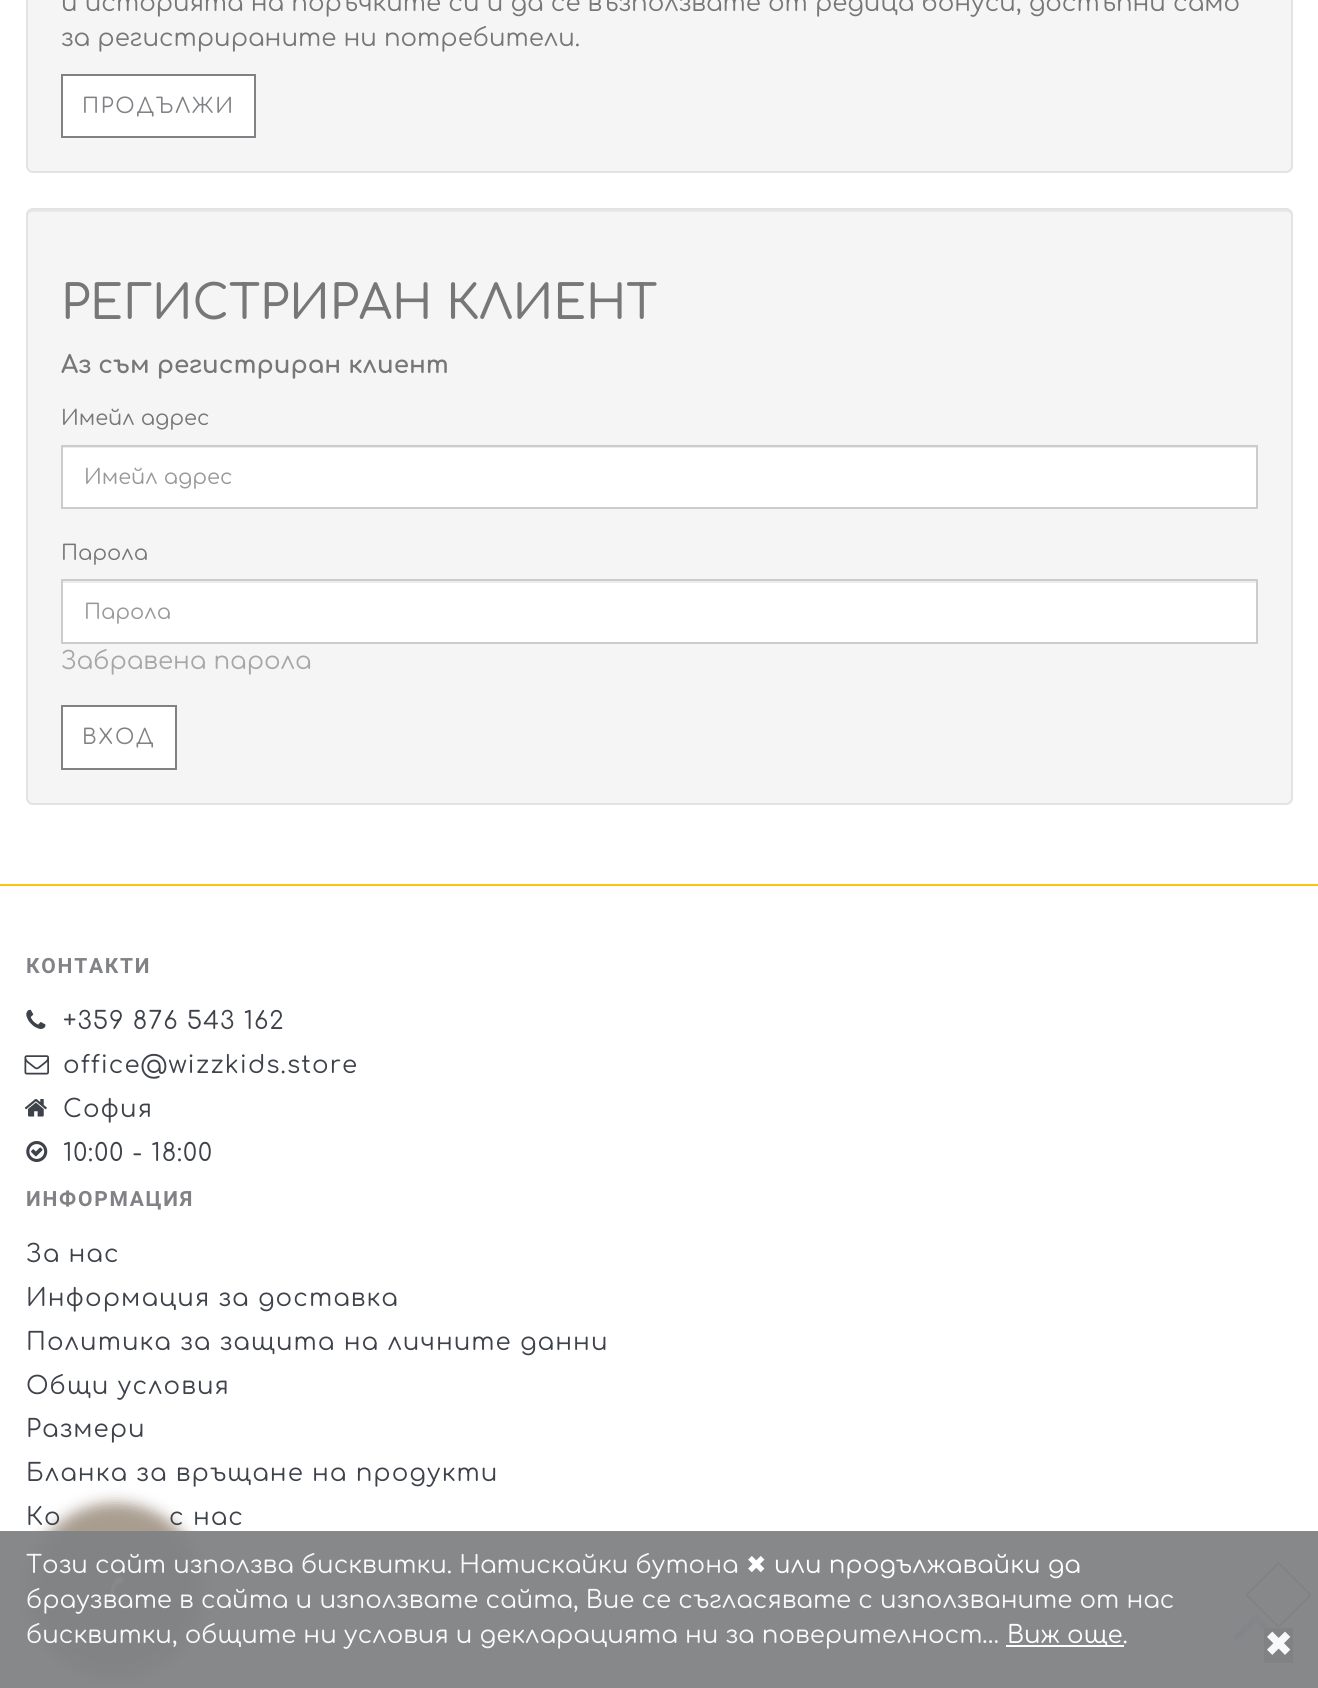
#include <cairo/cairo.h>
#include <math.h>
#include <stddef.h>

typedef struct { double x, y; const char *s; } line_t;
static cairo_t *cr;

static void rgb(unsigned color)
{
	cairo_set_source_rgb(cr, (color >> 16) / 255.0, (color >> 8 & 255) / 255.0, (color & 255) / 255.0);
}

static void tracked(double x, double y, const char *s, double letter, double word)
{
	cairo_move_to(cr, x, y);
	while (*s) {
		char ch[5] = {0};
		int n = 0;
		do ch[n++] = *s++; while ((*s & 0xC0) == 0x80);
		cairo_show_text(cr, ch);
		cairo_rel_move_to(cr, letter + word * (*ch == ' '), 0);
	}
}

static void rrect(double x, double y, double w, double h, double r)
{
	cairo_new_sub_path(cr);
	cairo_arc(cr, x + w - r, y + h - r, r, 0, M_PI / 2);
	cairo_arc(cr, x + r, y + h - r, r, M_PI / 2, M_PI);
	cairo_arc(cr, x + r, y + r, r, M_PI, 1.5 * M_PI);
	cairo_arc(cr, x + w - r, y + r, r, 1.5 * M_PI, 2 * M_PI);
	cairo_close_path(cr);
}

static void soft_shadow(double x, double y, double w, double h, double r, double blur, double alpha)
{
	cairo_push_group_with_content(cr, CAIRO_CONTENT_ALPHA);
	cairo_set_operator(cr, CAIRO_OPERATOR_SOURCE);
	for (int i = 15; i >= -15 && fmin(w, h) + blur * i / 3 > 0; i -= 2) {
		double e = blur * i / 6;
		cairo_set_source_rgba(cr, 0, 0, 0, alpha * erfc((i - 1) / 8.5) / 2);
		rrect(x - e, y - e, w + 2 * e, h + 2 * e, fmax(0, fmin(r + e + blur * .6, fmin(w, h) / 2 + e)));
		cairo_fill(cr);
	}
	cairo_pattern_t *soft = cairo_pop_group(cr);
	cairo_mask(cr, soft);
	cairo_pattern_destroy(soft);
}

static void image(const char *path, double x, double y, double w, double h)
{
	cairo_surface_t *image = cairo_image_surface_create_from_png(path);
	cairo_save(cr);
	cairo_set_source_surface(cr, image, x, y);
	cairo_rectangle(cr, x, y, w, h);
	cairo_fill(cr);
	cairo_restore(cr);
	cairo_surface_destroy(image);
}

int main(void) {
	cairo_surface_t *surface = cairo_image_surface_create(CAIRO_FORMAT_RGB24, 1318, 1688);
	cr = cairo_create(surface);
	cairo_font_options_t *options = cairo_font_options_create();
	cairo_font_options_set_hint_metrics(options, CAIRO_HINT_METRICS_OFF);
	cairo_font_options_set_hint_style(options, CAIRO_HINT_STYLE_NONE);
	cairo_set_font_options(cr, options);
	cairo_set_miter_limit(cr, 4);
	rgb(0xffffff);
	cairo_paint(cr);
	rgb(0xf5f5f5);
	rrect(27, -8, 1265, 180, 6);
	cairo_fill_preserve(cr);
	rgb(0xe3e3e3);
	cairo_stroke(cr);
	rgb(0xffffff);
	cairo_rectangle(cr, 62, 75, 193, 62);
	cairo_fill_preserve(cr);
	rgb(0x808285);
	cairo_stroke(cr);
	rgb(0xf5f5f5);
	rrect(26, 208, 1267, 597, 7);
	cairo_fill(cr);
	rgb(0xe9e9e9);
	cairo_new_path(cr);
	cairo_move_to(cr, 33, 212);
	cairo_line_to(cr, 1286, 212);
	cairo_curve_to(cr, 1289, 212, 1292, 214, 1292, 217);
	cairo_line_to(cr, 1292, 215);
	cairo_curve_to(cr, 1292, 212, 1290, 210, 1287, 210);
	cairo_line_to(cr, 33, 210);
	cairo_curve_to(cr, 30, 210, 28, 212, 28, 215);
	cairo_line_to(cr, 28, 217);
	cairo_curve_to(cr, 28, 214, 30, 212, 33, 212);
	cairo_close_path(cr);
	cairo_fill(cr);
	rrect(27, 209, 1265, 595, 6);
	rgb(0xe3e3e3);
	cairo_stroke(cr);
	rgb(0xffffff);
	cairo_rectangle(cr, 63, 448, 1193, 59);
	cairo_fill(cr);
	rgb(0xececec);
	cairo_rectangle(cr, 63, 447, 1194, 1);
	cairo_fill(cr);
	cairo_rectangle(cr, 62, 446, 1195, 62);
	rgb(0xcccccc);
	cairo_stroke(cr);
	rgb(0xffffff);
	cairo_rectangle(cr, 63, 583, 1193, 59);
	cairo_fill(cr);
	rgb(0xececec);
	cairo_rectangle(cr, 63, 581, 1194, 2);
	cairo_fill(cr);
	cairo_rectangle(cr, 62, 580, 1195, 63);
	rgb(0xcccccc);
	cairo_stroke(cr);
	rgb(0xffffff);
	cairo_rectangle(cr, 62, 706, 114, 63);
	cairo_fill_preserve(cr);
	rgb(0x808285);
	cairo_stroke(cr);
	rgb(0xffc20f);
	cairo_rectangle(cr, 0, 884, 1318, 2);
	cairo_fill(cr);
	image("img/1.png", 26, 1009, 20, 20);
	image("img/2.png", 24, 1055, 25, 20);
	image("img/3.png", 24, 1099, 23, 18);
	image("img/4.png", 26, 1141, 22, 21);
	rgb(0xa99d90);
	soft_shadow(28, 1503, 175, 175, 87.5, 7, 1);
	image("img/5.png", 110, 1576, 15, 26);
	rgb(0xf5f5f5);
	cairo_new_path(cr);
	cairo_move_to(cr, 1280, 1563);
	cairo_line_to(cr, 1311, 1594);
	cairo_curve_to(cr, 1311, 1595, 1311, 1596, 1311, 1596);
	cairo_line_to(cr, 1280, 1627);
	cairo_curve_to(cr, 1279, 1628, 1278, 1628, 1277, 1627);
	cairo_line_to(cr, 1246, 1596);
	cairo_curve_to(cr, 1246, 1596, 1246, 1595, 1246, 1594);
	cairo_line_to(cr, 1277, 1563);
	cairo_curve_to(cr, 1278, 1562, 1279, 1562, 1280, 1563);
	cairo_close_path(cr);
	cairo_fill(cr);
	cairo_new_path(cr);
	cairo_move_to(cr, 1279, 1563.5);
	cairo_line_to(cr, 1310, 1594.5);
	cairo_line_to(cr, 1310, 1595.5);
	cairo_line_to(cr, 1279, 1626.5);
	cairo_line_to(cr, 1278, 1626.5);
	cairo_line_to(cr, 1247, 1595.5);
	cairo_line_to(cr, 1247, 1594.5);
	cairo_line_to(cr, 1278, 1563.5);
	cairo_close_path(cr);
	rgb(0x868687);
	cairo_set_line_width(cr, 1.8);
	cairo_stroke(cr);
	image("img/6.png", 1232, 1614, 47, 27);
	cairo_set_source_rgba(cr, 0.502, 0.51, 0.522, 0.95);
	cairo_rectangle(cr, 0, 1531, 1318, 157);
	cairo_fill(cr);
	rgb(0xffffff);
	cairo_rectangle(cr, 1006, 1645, 118, 2);
	cairo_fill(cr);
	cairo_set_source_rgba(cr, 0.502, 0.51, 0.522, 0.95);
	cairo_rectangle(cr, 1264, 1628, 29, 35);
	cairo_fill(cr);
	cairo_select_font_face(cr, "Comfortaa", CAIRO_FONT_SLANT_NORMAL, CAIRO_FONT_WEIGHT_NORMAL);
	cairo_set_font_size(cr, 24.5);
	rgb(0x777777);
	cairo_move_to(cr, 61, 11);
	cairo_show_text(cr, "и историята на поръчките си и да се възползвате от редица бонуси, достъпни само");
	cairo_move_to(cr, 61, 46);
	cairo_show_text(cr, "за регистрираните ни потребители.");
	cairo_set_font_size(cr, 21);
	rgb(0x808285);
	tracked(82, 113, "ПРОДЪЛЖИ", 1.75, 0);
	cairo_select_font_face(cr, "Comfortaa Medium", CAIRO_FONT_SLANT_NORMAL, CAIRO_FONT_WEIGHT_NORMAL);
	cairo_set_font_size(cr, 47.25);
	rgb(0x777777);
	cairo_move_to(cr, 61, 319);
	cairo_show_text(cr, "РЕГИСТРИРАН КЛИЕНТ");
	cairo_select_font_face(cr, "Comfortaa", CAIRO_FONT_SLANT_NORMAL, CAIRO_FONT_WEIGHT_BOLD);
	cairo_set_font_size(cr, 24.5);
	cairo_move_to(cr, 61, 373);
	cairo_show_text(cr, "Аз съм регистриран клиент");
	cairo_select_font_face(cr, "Comfortaa", CAIRO_FONT_SLANT_NORMAL, CAIRO_FONT_WEIGHT_NORMAL);
	cairo_set_font_size(cr, 21);
	cairo_move_to(cr, 61, 425);
	cairo_show_text(cr, "Имейл адрес");
	rgb(0x999999);
	cairo_move_to(cr, 84, 484);
	cairo_show_text(cr, "Имейл адрес");
	rgb(0x777777);
	cairo_move_to(cr, 61, 560);
	cairo_show_text(cr, "Парола");
	rgb(0x999999);
	cairo_move_to(cr, 84, 619);
	cairo_show_text(cr, "Парола");
	cairo_set_font_size(cr, 24.5);
	rgb(0xa7a7a7);
	cairo_move_to(cr, 61, 669);
	cairo_show_text(cr, "Забравена парола");
	cairo_set_font_size(cr, 21);
	rgb(0x808285);
	tracked(82, 744, "ВХОД", 1.75, 0);
	cairo_select_font_face(cr, "Roboto", CAIRO_FONT_SLANT_NORMAL, CAIRO_FONT_WEIGHT_BOLD);
	tracked(26, 973, "КОНТАКТИ", 1.75, 0);
	cairo_select_font_face(cr, "Comfortaa", CAIRO_FONT_SLANT_NORMAL, CAIRO_FONT_WEIGHT_NORMAL);
	cairo_set_font_size(cr, 24.5);
	rgb(0x3e424a);
	{
		static const line_t items[] = {
			{63, 1029, "+359 876 543 162"},
			{63, 1073, "office@wizzkids.store"},
			{63, 1117, "София"},
			{63, 1161, "10:00 - 18:00"},
		};
		for (size_t i = 0; i < sizeof items / sizeof *items; i++) {
			tracked(items[i].x, items[i].y, items[i].s, 1.05, 0);
		}
	}
	cairo_select_font_face(cr, "Roboto", CAIRO_FONT_SLANT_NORMAL, CAIRO_FONT_WEIGHT_BOLD);
	cairo_set_font_size(cr, 21);
	rgb(0x808285);
	tracked(26, 1206, "ИНФОРМАЦИЯ", 1.75, 0);
	cairo_select_font_face(cr, "Comfortaa", CAIRO_FONT_SLANT_NORMAL, CAIRO_FONT_WEIGHT_NORMAL);
	cairo_set_font_size(cr, 24.5);
	rgb(0x3e424a);
	{
		static const line_t items[] = {
			{26, 1262, "За нас"},
			{26, 1306, "Информация за доставка"},
			{26, 1350, "Политика за защита на личните данни"},
			{26, 1394, "Общи условия"},
			{26, 1437, "Размери"},
			{26, 1481, "Бланка за връщане на продукти"},
			{26, 1525, "Ко"},
			{169, 1525, "с нас"},
		};
		for (size_t i = 0; i < sizeof items / sizeof *items; i++) {
			tracked(items[i].x, items[i].y, items[i].s, 1.05, 0);
		}
	}
	rgb(0xf9f9f9);
	cairo_move_to(cr, 26, 1573);
	cairo_show_text(cr, "Този сайт използва бисквитки. Натискайки бутона");
	cairo_select_font_face(cr, "DejaVu Sans", CAIRO_FONT_SLANT_NORMAL, CAIRO_FONT_WEIGHT_NORMAL);
	rgb(0xffffff);
	cairo_move_to(cr, 746, 1573);
	cairo_show_text(cr, "✖");
	cairo_select_font_face(cr, "Comfortaa", CAIRO_FONT_SLANT_NORMAL, CAIRO_FONT_WEIGHT_NORMAL);
	cairo_move_to(cr, 774, 1573);
	cairo_show_text(cr, "или продължавайки да");
	rgb(0xf9f9f9);
	cairo_move_to(cr, 26, 1608);
	cairo_show_text(cr, "браузвате в сайта и използвате сайта, Вие се съгласявате с използваните от нас");
	cairo_move_to(cr, 26, 1643);
	cairo_show_text(cr, "бисквитки, общите ни условия и декларацията ни за поверителност…");
	rgb(0xffffff);
	cairo_move_to(cr, 1007, 1643);
	cairo_show_text(cr, "Виж още.");
	cairo_select_font_face(cr, "DejaVu Sans", CAIRO_FONT_SLANT_NORMAL, CAIRO_FONT_WEIGHT_NORMAL);
	cairo_set_font_size(cr, 35);
	rgb(0xf9f9f9);
	cairo_move_to(cr, 1264, 1656);
	cairo_show_text(cr, "✖");
	cairo_surface_write_to_png(surface, "page.png");
	cairo_font_options_destroy(options);
	cairo_destroy(cr);
	cairo_surface_destroy(surface);
	return 0;
}
